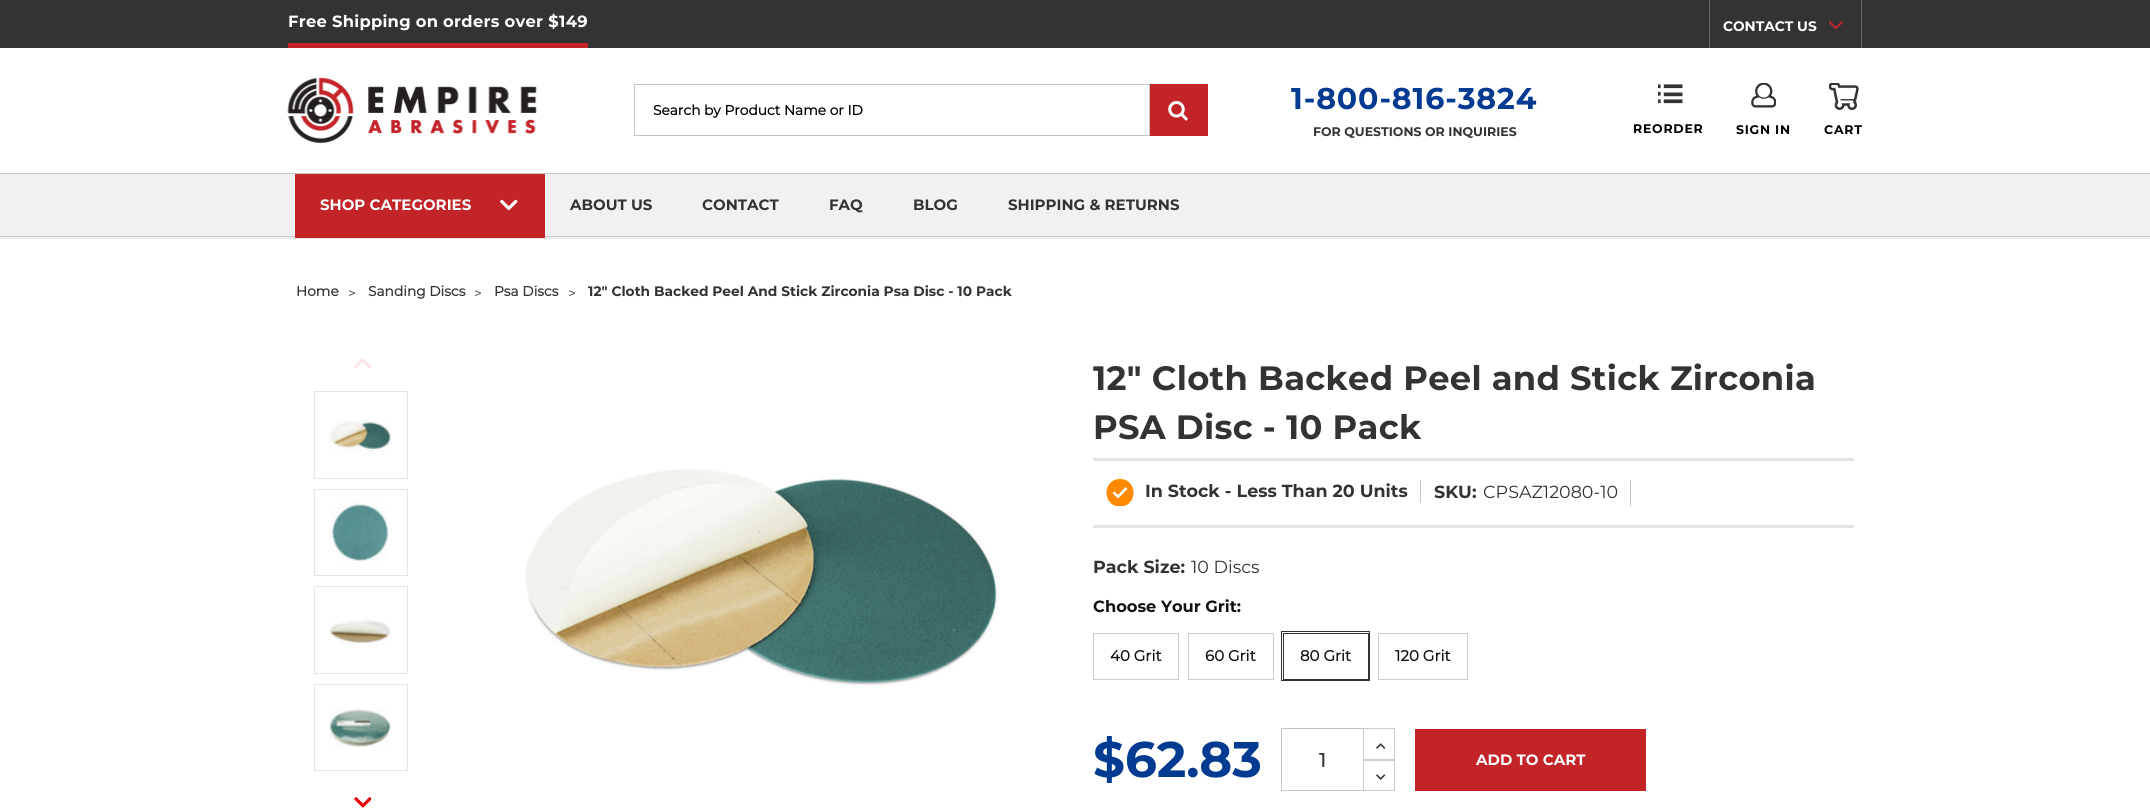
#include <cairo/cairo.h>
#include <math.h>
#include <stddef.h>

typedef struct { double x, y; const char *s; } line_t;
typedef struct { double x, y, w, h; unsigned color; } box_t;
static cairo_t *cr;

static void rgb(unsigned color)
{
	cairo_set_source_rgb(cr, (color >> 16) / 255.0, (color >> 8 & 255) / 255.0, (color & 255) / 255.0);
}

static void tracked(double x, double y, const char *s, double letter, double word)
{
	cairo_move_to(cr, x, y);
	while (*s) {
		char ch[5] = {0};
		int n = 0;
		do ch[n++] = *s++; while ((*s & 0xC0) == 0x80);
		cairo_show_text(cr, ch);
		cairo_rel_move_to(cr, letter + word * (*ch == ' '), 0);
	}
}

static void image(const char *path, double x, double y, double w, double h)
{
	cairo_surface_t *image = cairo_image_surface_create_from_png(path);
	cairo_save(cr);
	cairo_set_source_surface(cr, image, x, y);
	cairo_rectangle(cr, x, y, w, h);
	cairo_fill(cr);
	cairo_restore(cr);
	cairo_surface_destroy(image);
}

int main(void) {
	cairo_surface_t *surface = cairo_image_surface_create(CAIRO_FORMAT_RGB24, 2150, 812);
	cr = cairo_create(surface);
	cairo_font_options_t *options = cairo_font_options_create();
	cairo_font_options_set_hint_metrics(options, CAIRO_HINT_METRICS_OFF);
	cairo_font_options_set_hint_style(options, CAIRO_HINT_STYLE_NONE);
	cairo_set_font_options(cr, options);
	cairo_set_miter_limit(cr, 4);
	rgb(0xffffff);
	cairo_paint(cr);
	{
		static const box_t items[] = {
			{0, 238, 2150, 1, 0xe5e5e5},
			{0, 0, 2150, 48, 0x333333},
			{288, 43, 300, 5, 0xc32428},
			{1861, 0, 1, 48, 0x646464},
			{1709, 0, 1, 48, 0x646464},
		};
		for (size_t i = 0; i < sizeof items / sizeof *items; i++) {
			rgb(items[i].color);
			cairo_rectangle(cr, items[i].x, items[i].y, items[i].w, items[i].h);
			cairo_fill(cr);
		}
	}
	image("img/1.png", 1829, 20, 14, 10);
	image("img/2.png", 287, 77, 250, 67);
	cairo_rectangle(cr, 634.5, 84.5, 515, 51);
	rgb(0xc4c4c4);
	cairo_set_line_width(cr, 1);
	cairo_stroke(cr);
	rgb(0xc32428);
	cairo_rectangle(cr, 1150, 84, 58, 52);
	cairo_fill(cr);
	image("img/3.png", 1168, 101, 20, 20);
	image("img/4.png", 1658, 84, 25, 20);
	image("img/5.png", 1751, 83, 25, 25);
	image("img/6.png", 1829, 83, 30, 27);
	{
		static const box_t items[] = {
			{0, 174, 2150, 64, 0xf1f1f1},
			{0, 173, 2150, 1, 0xc9c9c9},
			{0, 236, 2150, 1, 0xc9c9c9},
			{295, 174, 250, 64, 0xc32428},
		};
		for (size_t i = 0; i < sizeof items / sizeof *items; i++) {
			rgb(items[i].color);
			cairo_rectangle(cr, items[i].x, items[i].y, items[i].w, items[i].h);
			cairo_fill(cr);
		}
	}
	image("img/7.png", 500, 199, 18, 12);
	image("img/8.png", 354, 358, 17, 11);
	cairo_rectangle(cr, 314.5, 391.5, 93, 87);
	rgb(0xe5e5e5);
	cairo_stroke(cr);
	image("img/9.png", 329, 418, 63, 36);
	cairo_rectangle(cr, 314.5, 489.5, 93, 86);
	cairo_stroke(cr);
	image("img/10.png", 329, 502, 60, 60);
	cairo_rectangle(cr, 314.5, 586.5, 93, 87);
	cairo_stroke(cr);
	image("img/11.png", 329, 619, 62, 30);
	cairo_rectangle(cr, 314.5, 684.5, 93, 86);
	cairo_stroke(cr);
	image("img/12.png", 329, 707, 62, 40);
	image("img/13.png", 354, 797, 18, 11);
	image("img/14.png", 525, 469, 474, 217);
	{
		static const box_t items[] = {
			{1093, 458, 761, 3, 0xe5e5e5},
			{1093, 525, 761, 3, 0xe5e5e5},
			{1420, 480, 1, 23, 0xc4c4c4},
		};
		for (size_t i = 0; i < sizeof items / sizeof *items; i++) {
			rgb(items[i].color);
			cairo_rectangle(cr, items[i].x, items[i].y, items[i].w, items[i].h);
			cairo_fill(cr);
		}
	}
	cairo_save(cr);
	cairo_rectangle(cr, 1105, 479, 30, 27);
	cairo_clip(cr);
	rgb(0xff8a00);
	cairo_new_path(cr);
	cairo_move_to(cr, 1120, 506.5);
	cairo_curve_to(cr, 1138, 506.5, 1138, 479, 1120, 479);
	cairo_curve_to(cr, 1102, 479, 1102, 506.5, 1120, 506.5);
	cairo_close_path(cr);
	cairo_move_to(cr, 1114.5, 491.5);
	cairo_line_to(cr, 1118, 495);
	cairo_line_to(cr, 1125.5, 487);
	cairo_line_to(cr, 1127.5, 489);
	cairo_line_to(cr, 1118, 498.5);
	cairo_line_to(cr, 1112.5, 493);
	cairo_close_path(cr);
	cairo_fill(cr);
	cairo_restore(cr);
	cairo_rectangle(cr, 1630, 480, 1, 26);
	cairo_fill(cr);
	cairo_rectangle(cr, 1093.5, 633.5, 85, 46);
	rgb(0xcccccc);
	cairo_stroke(cr);
	cairo_rectangle(cr, 1188.5, 633.5, 85, 46);
	cairo_stroke(cr);
	cairo_rectangle(cr, 1281.5, 631.5, 88, 49);
	rgb(0x333333);
	cairo_stroke(cr);
	cairo_rectangle(cr, 1283.5, 633.5, 85, 46);
	cairo_stroke(cr);
	cairo_rectangle(cr, 1378.5, 633.5, 89, 46);
	rgb(0xcccccc);
	cairo_stroke(cr);
	{
		static const box_t items[] = {
			{1281, 728, 82, 1, 0xc4c4c4},
			{1281, 790, 82, 1, 0xc4c4c4},
			{1281, 728, 1, 63, 0xc4c4c4},
		};
		for (size_t i = 0; i < sizeof items / sizeof *items; i++) {
			rgb(items[i].color);
			cairo_rectangle(cr, items[i].x, items[i].y, items[i].w, items[i].h);
			cairo_fill(cr);
		}
	}
	cairo_rectangle(cr, 1363.5, 728.5, 31, 31);
	rgb(0xcccccc);
	cairo_stroke(cr);
	image("img/15.png", 1376, 743, 10, 6);
	cairo_rectangle(cr, 1363.5, 760.5, 31, 30);
	cairo_stroke(cr);
	image("img/16.png", 1376, 774, 10, 6);
	rgb(0xc32428);
	cairo_rectangle(cr, 1415, 729, 231, 62);
	cairo_fill(cr);
	cairo_select_font_face(cr, "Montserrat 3", CAIRO_FONT_SLANT_NORMAL, CAIRO_FONT_WEIGHT_BOLD);
	cairo_set_font_size(cr, 16.25);
	rgb(0xffffff);
	tracked(288, 27, "Free Shipping on orders over $149", 0.3, 0);
	cairo_set_font_size(cr, 13.75);
	cairo_move_to(cr, 1723, 31);
	cairo_show_text(cr, "CONTACT US");
	cairo_select_font_face(cr, "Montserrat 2", CAIRO_FONT_SLANT_NORMAL, CAIRO_FONT_WEIGHT_BOLD);
	rgb(0x000000);
	cairo_move_to(cr, 653, 115);
	cairo_show_text(cr, "Search by Product Name or ID");
	cairo_select_font_face(cr, "Montserrat", CAIRO_FONT_SLANT_NORMAL, CAIRO_FONT_WEIGHT_BOLD);
	cairo_set_font_size(cr, 30);
	rgb(0x003a91);
	tracked(1291, 109, "1-800-816-3824", 0.9, 0);
	cairo_set_font_size(cr, 12.5);
	rgb(0x333333);
	cairo_move_to(cr, 1313, 136);
	cairo_show_text(cr, "FOR QUESTIONS OR INQUIRIES");
	rgb(0x000000);
	{
		static const line_t items[] = {
			{1633, 133, "REORDER"},
			{1736, 134, "SIGN IN"},
			{1824, 134, "CART"},
		};
		for (size_t i = 0; i < sizeof items / sizeof *items; i++) {
			tracked(items[i].x, items[i].y, items[i].s, 0.75, 0);
		}
	}
	cairo_set_font_size(cr, 15);
	rgb(0xffffff);
	cairo_move_to(cr, 320, 210);
	cairo_show_text(cr, "SHOP CATEGORIES");
	rgb(0x333333);
	{
		static const line_t items[] = {
			{570, 210, "ABOUT US"},
			{702, 210, "CONTACT"},
			{829, 210, "FAQ"},
			{913, 210, "BLOG"},
			{1008, 210, "SHIPPING & RETURNS"},
		};
		for (size_t i = 0; i < sizeof items / sizeof *items; i++) {
			cairo_move_to(cr, items[i].x, items[i].y);
			cairo_show_text(cr, items[i].s);
		}
	}
	cairo_select_font_face(cr, "Montserrat 2", CAIRO_FONT_SLANT_NORMAL, CAIRO_FONT_WEIGHT_BOLD);
	cairo_set_font_size(cr, 13.75);
	cairo_move_to(cr, 296, 296);
	cairo_show_text(cr, "Home");
	cairo_select_font_face(cr, "Montserrat", CAIRO_FONT_SLANT_NORMAL, CAIRO_FONT_WEIGHT_NORMAL);
	cairo_move_to(cr, 348, 298);
	cairo_show_text(cr, ">");
	cairo_select_font_face(cr, "Montserrat 2", CAIRO_FONT_SLANT_NORMAL, CAIRO_FONT_WEIGHT_BOLD);
	cairo_move_to(cr, 368, 296);
	cairo_show_text(cr, "Sanding Discs");
	cairo_select_font_face(cr, "Montserrat", CAIRO_FONT_SLANT_NORMAL, CAIRO_FONT_WEIGHT_NORMAL);
	cairo_move_to(cr, 474, 298);
	cairo_show_text(cr, ">");
	cairo_select_font_face(cr, "Montserrat 2", CAIRO_FONT_SLANT_NORMAL, CAIRO_FONT_WEIGHT_BOLD);
	cairo_move_to(cr, 494, 296);
	cairo_show_text(cr, "Psa Discs");
	cairo_select_font_face(cr, "Montserrat", CAIRO_FONT_SLANT_NORMAL, CAIRO_FONT_WEIGHT_NORMAL);
	cairo_move_to(cr, 568, 298);
	cairo_show_text(cr, ">");
	cairo_select_font_face(cr, "Montserrat", CAIRO_FONT_SLANT_NORMAL, CAIRO_FONT_WEIGHT_BOLD);
	cairo_move_to(cr, 588, 296);
	cairo_show_text(cr, "12\" Cloth Backed Peel And Stick Zirconia Psa Disc - 10 Pack");
	cairo_set_font_size(cr, 33.75);
	tracked(1093, 390, "12\" Cloth Backed Peel and Stick Zirconia", 0.3, 0);
	tracked(1093, 439, "PSA Disc - 10 Pack", 0.3, 0);
	cairo_set_font_size(cr, 17.5);
	cairo_move_to(cr, 1145, 497);
	cairo_show_text(cr, "In Stock - Less Than 20 Units");
	cairo_move_to(cr, 1434, 498);
	cairo_show_text(cr, "SKU:");
	cairo_select_font_face(cr, "Montserrat", CAIRO_FONT_SLANT_NORMAL, CAIRO_FONT_WEIGHT_NORMAL);
	cairo_move_to(cr, 1483, 498);
	cairo_show_text(cr, "CPSAZ12080-10");
	cairo_select_font_face(cr, "Montserrat", CAIRO_FONT_SLANT_NORMAL, CAIRO_FONT_WEIGHT_BOLD);
	cairo_move_to(cr, 1093, 573);
	cairo_show_text(cr, "Pack Size:");
	cairo_select_font_face(cr, "Montserrat", CAIRO_FONT_SLANT_NORMAL, CAIRO_FONT_WEIGHT_NORMAL);
	cairo_move_to(cr, 1191, 573);
	cairo_show_text(cr, "10 Discs");
	cairo_select_font_face(cr, "Montserrat", CAIRO_FONT_SLANT_NORMAL, CAIRO_FONT_WEIGHT_BOLD);
	cairo_set_font_size(cr, 16.25);
	rgb(0x111111);
	cairo_move_to(cr, 1093, 612);
	cairo_show_text(cr, "Choose Your Grit:");
	cairo_select_font_face(cr, "Montserrat 2", CAIRO_FONT_SLANT_NORMAL, CAIRO_FONT_WEIGHT_BOLD);
	cairo_set_font_size(cr, 15);
	{
		static const line_t items[] = {
			{1110, 661, "40 Grit"},
			{1205, 661, "60 Grit"},
			{1300, 661, "80 Grit"},
			{1395, 661, "120 Grit"},
		};
		for (size_t i = 0; i < sizeof items / sizeof *items; i++) {
			cairo_move_to(cr, items[i].x, items[i].y);
			cairo_show_text(cr, items[i].s);
		}
	}
	cairo_select_font_face(cr, "Montserrat", CAIRO_FONT_SLANT_NORMAL, CAIRO_FONT_WEIGHT_BOLD);
	cairo_set_font_size(cr, 50);
	rgb(0x003a91);
	cairo_move_to(cr, 1093, 777);
	cairo_show_text(cr, "$62.83");
	cairo_select_font_face(cr, "Montserrat Medium", CAIRO_FONT_SLANT_NORMAL, CAIRO_FONT_WEIGHT_NORMAL);
	cairo_set_font_size(cr, 20);
	rgb(0x333333);
	cairo_move_to(cr, 1319, 767);
	cairo_show_text(cr, "1");
	cairo_select_font_face(cr, "Montserrat", CAIRO_FONT_SLANT_NORMAL, CAIRO_FONT_WEIGHT_BOLD);
	cairo_set_font_size(cr, 15);
	rgb(0xffffff);
	cairo_move_to(cr, 1476, 765);
	cairo_show_text(cr, "ADD TO CART");
	cairo_surface_write_to_png(surface, "page.png");
	cairo_font_options_destroy(options);
	cairo_destroy(cr);
	cairo_surface_destroy(surface);
	return 0;
}
